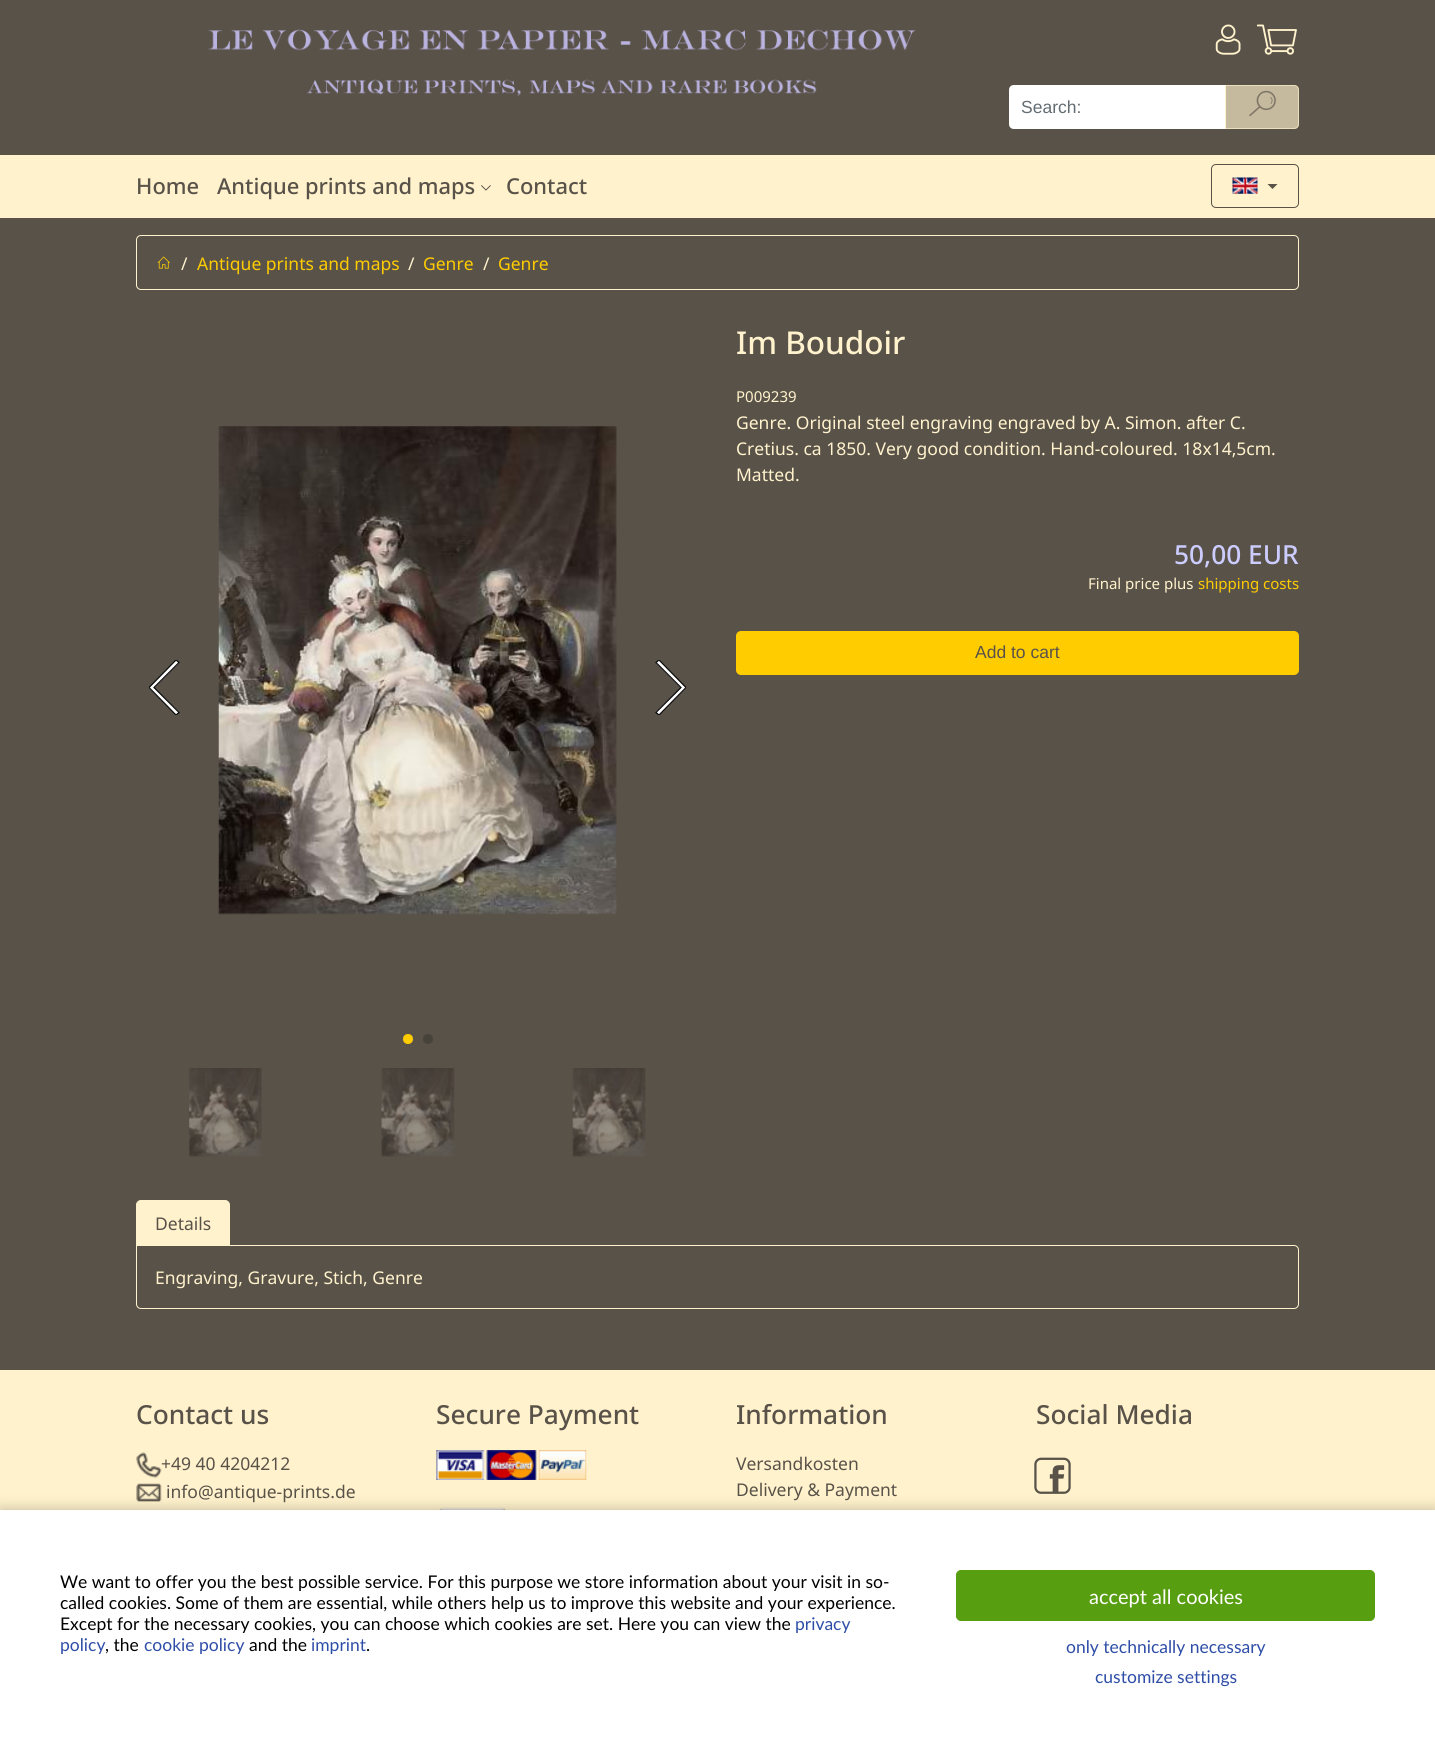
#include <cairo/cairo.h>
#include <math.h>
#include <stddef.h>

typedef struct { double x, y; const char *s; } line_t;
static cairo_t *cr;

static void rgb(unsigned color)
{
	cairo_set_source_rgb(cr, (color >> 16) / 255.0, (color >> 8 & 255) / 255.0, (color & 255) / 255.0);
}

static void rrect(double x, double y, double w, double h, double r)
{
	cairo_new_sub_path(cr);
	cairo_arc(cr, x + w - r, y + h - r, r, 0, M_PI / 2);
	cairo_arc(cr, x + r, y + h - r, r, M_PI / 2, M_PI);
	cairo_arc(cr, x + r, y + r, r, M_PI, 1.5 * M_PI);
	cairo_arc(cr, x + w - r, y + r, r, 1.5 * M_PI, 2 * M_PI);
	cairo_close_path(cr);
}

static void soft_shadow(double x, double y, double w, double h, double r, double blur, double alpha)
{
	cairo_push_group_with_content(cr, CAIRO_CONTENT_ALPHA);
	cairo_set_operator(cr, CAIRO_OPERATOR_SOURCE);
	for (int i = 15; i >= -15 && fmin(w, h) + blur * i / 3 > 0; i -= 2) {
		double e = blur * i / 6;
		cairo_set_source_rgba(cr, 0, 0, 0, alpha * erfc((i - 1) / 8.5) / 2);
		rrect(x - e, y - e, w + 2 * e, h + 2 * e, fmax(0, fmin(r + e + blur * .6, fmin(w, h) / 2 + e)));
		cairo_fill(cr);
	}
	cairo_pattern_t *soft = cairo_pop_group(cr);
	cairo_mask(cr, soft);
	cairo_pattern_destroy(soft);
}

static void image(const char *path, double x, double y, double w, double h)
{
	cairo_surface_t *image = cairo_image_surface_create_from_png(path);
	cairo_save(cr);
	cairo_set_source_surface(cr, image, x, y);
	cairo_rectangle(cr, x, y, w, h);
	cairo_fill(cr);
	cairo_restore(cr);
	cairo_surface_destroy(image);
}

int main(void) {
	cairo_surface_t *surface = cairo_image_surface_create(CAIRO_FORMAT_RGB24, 1435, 1746);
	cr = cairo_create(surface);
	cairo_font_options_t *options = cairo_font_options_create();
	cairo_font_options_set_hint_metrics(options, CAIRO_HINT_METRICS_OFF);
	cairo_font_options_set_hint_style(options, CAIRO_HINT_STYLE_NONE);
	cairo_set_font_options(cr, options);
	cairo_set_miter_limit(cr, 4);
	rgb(0x595249);
	cairo_paint(cr);
	image("img/1.png", 208, 29, 708, 67);
	image("img/2.png", 1215, 24, 26, 31);
	image("img/3.png", 1256, 24, 41, 31);
	rgb(0xffffff);
	cairo_new_path(cr);
	cairo_move_to(cr, 1014, 85);
	cairo_line_to(cr, 1226, 85);
	cairo_line_to(cr, 1226, 129);
	cairo_line_to(cr, 1014, 129);
	cairo_curve_to(cr, 1011, 129, 1009, 127, 1009, 124);
	cairo_line_to(cr, 1009, 90);
	cairo_curve_to(cr, 1009, 87, 1011, 85, 1014, 85);
	cairo_close_path(cr);
	cairo_fill(cr);
	cairo_set_source_rgba(cr, 1, 0.949, 0.8, 0.65);
	cairo_new_path(cr);
	cairo_move_to(cr, 1225, 85);
	cairo_line_to(cr, 1294, 85);
	cairo_curve_to(cr, 1297, 85, 1299, 87, 1299, 90);
	cairo_line_to(cr, 1299, 124);
	cairo_curve_to(cr, 1299, 127, 1297, 129, 1294, 129);
	cairo_line_to(cr, 1225, 129);
	cairo_close_path(cr);
	cairo_fill(cr);
	cairo_new_path(cr);
	cairo_move_to(cr, 1225.5, 85.5);
	cairo_line_to(cr, 1294, 85.5);
	cairo_curve_to(cr, 1296.5, 85.5, 1298.5, 87.5, 1298.5, 90);
	cairo_line_to(cr, 1298.5, 124);
	cairo_curve_to(cr, 1298.5, 126.5, 1296.5, 128.5, 1294, 128.5);
	cairo_line_to(cr, 1225.5, 128.5);
	cairo_close_path(cr);
	cairo_set_line_width(cr, 1);
	cairo_stroke(cr);
	image("img/4.png", 1249, 90, 27, 27);
	rgb(0xfff2cc);
	cairo_rectangle(cr, 0, 155, 1435, 63);
	cairo_fill(cr);
	image("img/5.png", 481, 185, 10, 6);
	rrect(1211.5, 164.5, 87, 43, 4.5);
	rgb(0x595249);
	cairo_stroke(cr);
	image("img/6.png", 1232, 177, 26, 17);
	cairo_new_path(cr);
	cairo_move_to(cr, 1267.5, 184);
	cairo_line_to(cr, 1277.5, 184);
	cairo_line_to(cr, 1272.5, 189);
	cairo_close_path(cr);
	cairo_fill(cr);
	rrect(136.5, 235.5, 1162, 54, 4.5);
	rgb(0xfff2cc);
	cairo_stroke(cr);
	image("img/7.png", 157, 256, 13, 13);
	rgb(0xffffff);
	cairo_new_path(cr);
	cairo_move_to(cr, 149, 688);
	cairo_line_to(cr, 176, 660);
	cairo_line_to(cr, 179, 663);
	cairo_line_to(cr, 154, 688);
	cairo_line_to(cr, 179, 712);
	cairo_line_to(cr, 176, 715);
	cairo_close_path(cr);
	cairo_fill(cr);
	cairo_save(cr);
	cairo_rectangle(cr, 149, 660, 34, 55);
	cairo_clip(cr);
	cairo_new_path(cr);
	cairo_move_to(cr, 149, 687.5);
	cairo_line_to(cr, 176, 660);
	cairo_line_to(cr, 179, 662.5);
	cairo_line_to(cr, 154, 687.5);
	cairo_line_to(cr, 179, 712.5);
	cairo_line_to(cr, 176, 715);
	cairo_close_path(cr);
	rgb(0x0a0a0a);
	cairo_set_line_width(cr, 1.2);
	cairo_stroke(cr);
	cairo_restore(cr);
	image("img/8.png", 218, 426, 399, 489);
	cairo_new_path(cr);
	cairo_move_to(cr, 686, 688);
	cairo_line_to(cr, 659, 715);
	cairo_line_to(cr, 656, 712);
	cairo_line_to(cr, 681, 688);
	cairo_line_to(cr, 656, 663);
	cairo_line_to(cr, 659, 660);
	cairo_close_path(cr);
	cairo_fill(cr);
	cairo_save(cr);
	cairo_rectangle(cr, 653, 660, 33, 55);
	cairo_clip(cr);
	cairo_new_path(cr);
	cairo_move_to(cr, 686, 687.5);
	cairo_line_to(cr, 659, 715);
	cairo_line_to(cr, 656, 712.5);
	cairo_line_to(cr, 681, 687.5);
	cairo_line_to(cr, 656, 662.5);
	cairo_line_to(cr, 659, 660);
	cairo_close_path(cr);
	rgb(0x0a0a0a);
	cairo_set_line_width(cr, 1.2);
	cairo_stroke(cr);
	cairo_restore(cr);
	rgb(0xffcc00);
	cairo_arc(cr, 408, 1039, 5, 0, 2 * M_PI);
	cairo_fill(cr);
	rgb(0x47423a);
	cairo_arc(cr, 428, 1039, 5, 0, 2 * M_PI);
	cairo_fill(cr);
	image("img/9.png", 189, 1068, 73, 89);
	image("img/10.png", 381, 1068, 74, 89);
	image("img/11.png", 572, 1068, 74, 89);
	rgb(0xffcc00);
	rrect(736, 631, 563, 44, 5);
	cairo_fill(cr);
	cairo_new_path(cr);
	cairo_move_to(cr, 136.5, 1245.5);
	cairo_line_to(cr, 1294, 1245.5);
	cairo_curve_to(cr, 1296.5, 1245.5, 1298.5, 1247.5, 1298.5, 1250);
	cairo_line_to(cr, 1298.5, 1304);
	cairo_curve_to(cr, 1298.5, 1306.5, 1296.5, 1308.5, 1294, 1308.5);
	cairo_line_to(cr, 141, 1308.5);
	cairo_curve_to(cr, 138.5, 1308.5, 136.5, 1306.5, 136.5, 1304);
	cairo_close_path(cr);
	rgb(0xfff2cc);
	cairo_stroke(cr);
	cairo_new_path(cr);
	cairo_move_to(cr, 141, 1200.5);
	cairo_line_to(cr, 225, 1200.5);
	cairo_curve_to(cr, 227.5, 1200.5, 229.5, 1202.5, 229.5, 1205);
	cairo_line_to(cr, 229.5, 1245.5);
	cairo_line_to(cr, 136.5, 1245.5);
	cairo_line_to(cr, 136.5, 1205);
	cairo_curve_to(cr, 136.5, 1202.5, 138.5, 1200.5, 141, 1200.5);
	cairo_close_path(cr);
	cairo_fill_preserve(cr);
	cairo_stroke(cr);
	cairo_rectangle(cr, 0, 1370, 1435, 140);
	cairo_fill(cr);
	image("img/12.png", 136, 1452, 26, 26);
	image("img/13.png", 136, 1483, 26, 19);
	image("img/14.png", 436, 1450, 151, 30);
	image("img/15.png", 439, 1507, 68, 3);
	image("img/16.png", 1034, 1457, 37, 37);
	rgb(0x000000);
	soft_shadow(0, 1510, 1435, 236, 0, 7.5, 0.25);
	rgb(0xffffff);
	cairo_rectangle(cr, 0, 1510, 1435, 236);
	cairo_fill(cr);
	rgb(0x589e11);
	rrect(956.5, 1570.5, 418, 50, 4.5);
	cairo_fill_preserve(cr);
	cairo_stroke(cr);
	cairo_select_font_face(cr, "Liberation Sans", CAIRO_FONT_SLANT_NORMAL, CAIRO_FONT_WEIGHT_NORMAL);
	cairo_set_font_size(cr, 17.5);
	rgb(0x636c72);
	cairo_move_to(cr, 1021, 113);
	cairo_show_text(cr, "Search:");
	cairo_select_font_face(cr, "Noto Sans Medium", CAIRO_FONT_SLANT_NORMAL, CAIRO_FONT_WEIGHT_NORMAL);
	cairo_set_font_size(cr, 21.9);
	rgb(0x595249);
	{
		static const line_t items[] = {
			{136, 194, "Home"},
			{217, 194, "Antique prints and maps"},
			{506, 194, "Contact"},
		};
		for (size_t i = 0; i < sizeof items / sizeof *items; i++) {
			cairo_move_to(cr, items[i].x, items[i].y);
			cairo_show_text(cr, items[i].s);
		}
	}
	cairo_select_font_face(cr, "Noto Sans", CAIRO_FONT_SLANT_NORMAL, CAIRO_FONT_WEIGHT_NORMAL);
	cairo_set_font_size(cr, 17.5);
	rgb(0xfff2cc);
	cairo_move_to(cr, 181, 270);
	cairo_show_text(cr, "/");
	rgb(0xffcc00);
	cairo_move_to(cr, 197, 270);
	cairo_show_text(cr, "Antique prints and maps");
	rgb(0xfff2cc);
	cairo_move_to(cr, 408, 270);
	cairo_show_text(cr, "/");
	rgb(0xffcc00);
	cairo_move_to(cr, 423, 270);
	cairo_show_text(cr, "Genre");
	rgb(0xfff2cc);
	cairo_move_to(cr, 483, 270);
	cairo_show_text(cr, "/");
	rgb(0xffcc00);
	cairo_move_to(cr, 498, 270);
	cairo_show_text(cr, "Genre");
	cairo_select_font_face(cr, "Noto Sans Medium", CAIRO_FONT_SLANT_NORMAL, CAIRO_FONT_WEIGHT_NORMAL);
	cairo_set_font_size(cr, 31.5);
	rgb(0xfff2cc);
	cairo_move_to(cr, 736, 354);
	cairo_show_text(cr, "Im Boudoir");
	cairo_select_font_face(cr, "Noto Sans", CAIRO_FONT_SLANT_NORMAL, CAIRO_FONT_WEIGHT_NORMAL);
	cairo_set_font_size(cr, 15);
	cairo_move_to(cr, 736, 402);
	cairo_show_text(cr, "P009239");
	cairo_set_font_size(cr, 17.5);
	{
		static const line_t items[] = {
			{736, 429, "Genre. Original steel engraving engraved by A. Simon. after C."},
			{736, 455, "Cretius. ca 1850. Very good condition. Hand-coloured. 18x14,5cm."},
			{736, 481, "Matted."},
		};
		for (size_t i = 0; i < sizeof items / sizeof *items; i++) {
			cairo_move_to(cr, items[i].x, items[i].y);
			cairo_show_text(cr, items[i].s);
		}
	}
	cairo_select_font_face(cr, "Noto Sans Medium", CAIRO_FONT_SLANT_NORMAL, CAIRO_FONT_WEIGHT_NORMAL);
	cairo_set_font_size(cr, 26.25);
	rgb(0xccccff);
	cairo_move_to(cr, 1174, 564);
	cairo_show_text(cr, "50,00 EUR");
	cairo_select_font_face(cr, "Noto Sans", CAIRO_FONT_SLANT_NORMAL, CAIRO_FONT_WEIGHT_NORMAL);
	cairo_set_font_size(cr, 15);
	rgb(0xfff2cc);
	cairo_move_to(cr, 1088, 589);
	cairo_show_text(cr, "Final price plus");
	rgb(0xffcc00);
	cairo_move_to(cr, 1198, 589);
	cairo_show_text(cr, "shipping costs");
	cairo_select_font_face(cr, "Liberation Sans", CAIRO_FONT_SLANT_NORMAL, CAIRO_FONT_WEIGHT_NORMAL);
	cairo_set_font_size(cr, 17.5);
	rgb(0x595249);
	cairo_move_to(cr, 975, 658);
	cairo_show_text(cr, "Add to cart");
	cairo_select_font_face(cr, "Noto Sans", CAIRO_FONT_SLANT_NORMAL, CAIRO_FONT_WEIGHT_NORMAL);
	cairo_move_to(cr, 155, 1230);
	cairo_show_text(cr, "Details");
	rgb(0xfff2cc);
	cairo_move_to(cr, 155, 1284);
	cairo_show_text(cr, "Engraving, Gravure, Stich, Genre");
	cairo_select_font_face(cr, "Noto Sans Medium", CAIRO_FONT_SLANT_NORMAL, CAIRO_FONT_WEIGHT_NORMAL);
	cairo_set_font_size(cr, 26.25);
	rgb(0x595249);
	cairo_move_to(cr, 136, 1424);
	cairo_show_text(cr, "Contact us");
	cairo_select_font_face(cr, "Noto Sans", CAIRO_FONT_SLANT_NORMAL, CAIRO_FONT_WEIGHT_NORMAL);
	cairo_set_font_size(cr, 17.5);
	cairo_move_to(cr, 161, 1470);
	cairo_show_text(cr, "+49 40 4204212");
	cairo_move_to(cr, 166, 1498);
	cairo_show_text(cr, "info@antique-prints.de");
	cairo_select_font_face(cr, "Noto Sans Medium", CAIRO_FONT_SLANT_NORMAL, CAIRO_FONT_WEIGHT_NORMAL);
	cairo_set_font_size(cr, 26.25);
	cairo_move_to(cr, 436, 1424);
	cairo_show_text(cr, "Secure Payment");
	cairo_move_to(cr, 736, 1424);
	cairo_show_text(cr, "Information");
	cairo_select_font_face(cr, "Noto Sans", CAIRO_FONT_SLANT_NORMAL, CAIRO_FONT_WEIGHT_NORMAL);
	cairo_set_font_size(cr, 17.5);
	cairo_move_to(cr, 736, 1470);
	cairo_show_text(cr, "Versandkosten");
	cairo_move_to(cr, 736, 1496);
	cairo_show_text(cr, "Delivery & Payment");
	cairo_select_font_face(cr, "Noto Sans Medium", CAIRO_FONT_SLANT_NORMAL, CAIRO_FONT_WEIGHT_NORMAL);
	cairo_set_font_size(cr, 26.25);
	cairo_move_to(cr, 1036, 1424);
	cairo_show_text(cr, "Social Media");
	cairo_select_font_face(cr, "Lato", CAIRO_FONT_SLANT_NORMAL, CAIRO_FONT_WEIGHT_NORMAL);
	cairo_set_font_size(cr, 17.5);
	rgb(0x000000);
	{
		static const line_t items[] = {
			{60, 1588, "We want to offer you the best possible service. For this purpose we store information about your visit in so-"},
			{60, 1609, "called cookies. Some of them are essential, while others help us to improve this website and your experience."},
			{60, 1630, "Except for the necessary cookies, you can choose which cookies are set. Here you can view the"},
		};
		for (size_t i = 0; i < sizeof items / sizeof *items; i++) {
			cairo_move_to(cr, items[i].x, items[i].y);
			cairo_show_text(cr, items[i].s);
		}
	}
	rgb(0x2e4da7);
	cairo_move_to(cr, 795, 1630);
	cairo_show_text(cr, "privacy");
	cairo_move_to(cr, 60, 1651);
	cairo_show_text(cr, "policy");
	rgb(0x000000);
	cairo_move_to(cr, 105, 1651);
	cairo_show_text(cr, ", the");
	rgb(0x2e4da7);
	cairo_move_to(cr, 144, 1651);
	cairo_show_text(cr, "cookie policy");
	rgb(0x000000);
	cairo_move_to(cr, 249, 1651);
	cairo_show_text(cr, "and the");
	rgb(0x2e4da7);
	cairo_move_to(cr, 311, 1651);
	cairo_show_text(cr, "imprint");
	rgb(0x000000);
	cairo_move_to(cr, 366, 1651);
	cairo_show_text(cr, ".");
	cairo_set_font_size(cr, 20);
	rgb(0xffffff);
	cairo_move_to(cr, 1089, 1604);
	cairo_show_text(cr, "accept all cookies");
	cairo_set_font_size(cr, 17.5);
	rgb(0x2e4da7);
	cairo_move_to(cr, 1066, 1653);
	cairo_show_text(cr, "only technically necessary");
	cairo_move_to(cr, 1095, 1683);
	cairo_show_text(cr, "customize settings");
	cairo_surface_write_to_png(surface, "page.png");
	cairo_font_options_destroy(options);
	cairo_destroy(cr);
	cairo_surface_destroy(surface);
	return 0;
}
